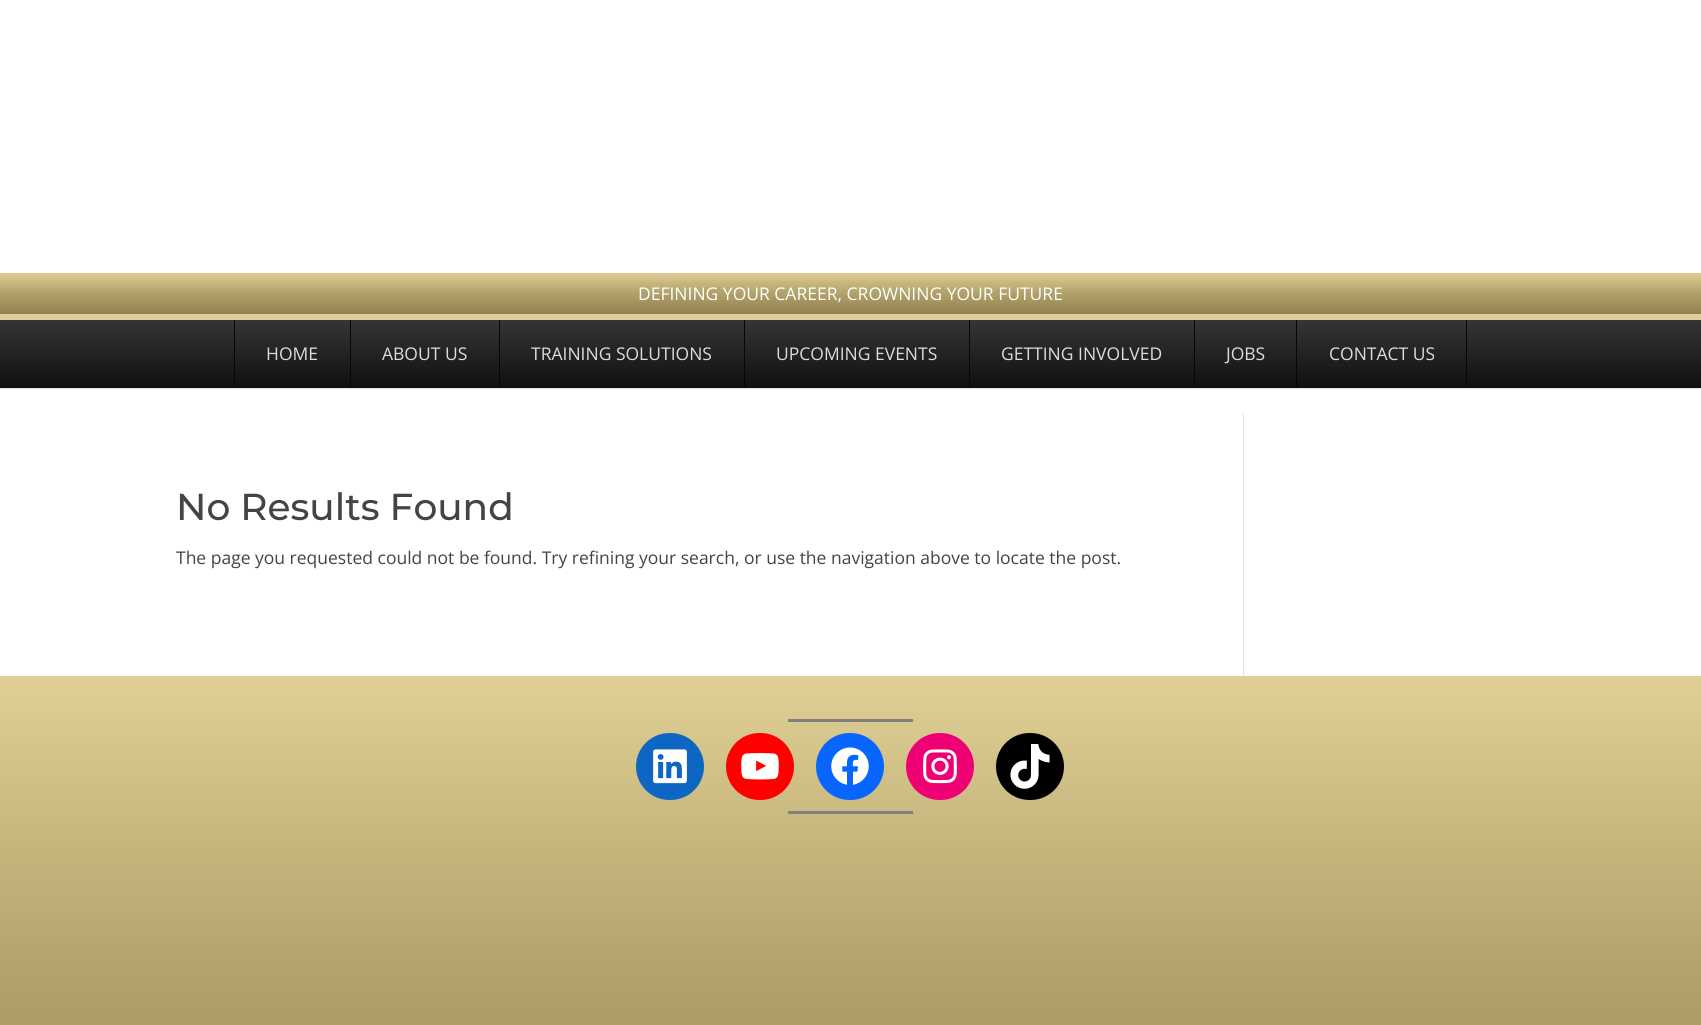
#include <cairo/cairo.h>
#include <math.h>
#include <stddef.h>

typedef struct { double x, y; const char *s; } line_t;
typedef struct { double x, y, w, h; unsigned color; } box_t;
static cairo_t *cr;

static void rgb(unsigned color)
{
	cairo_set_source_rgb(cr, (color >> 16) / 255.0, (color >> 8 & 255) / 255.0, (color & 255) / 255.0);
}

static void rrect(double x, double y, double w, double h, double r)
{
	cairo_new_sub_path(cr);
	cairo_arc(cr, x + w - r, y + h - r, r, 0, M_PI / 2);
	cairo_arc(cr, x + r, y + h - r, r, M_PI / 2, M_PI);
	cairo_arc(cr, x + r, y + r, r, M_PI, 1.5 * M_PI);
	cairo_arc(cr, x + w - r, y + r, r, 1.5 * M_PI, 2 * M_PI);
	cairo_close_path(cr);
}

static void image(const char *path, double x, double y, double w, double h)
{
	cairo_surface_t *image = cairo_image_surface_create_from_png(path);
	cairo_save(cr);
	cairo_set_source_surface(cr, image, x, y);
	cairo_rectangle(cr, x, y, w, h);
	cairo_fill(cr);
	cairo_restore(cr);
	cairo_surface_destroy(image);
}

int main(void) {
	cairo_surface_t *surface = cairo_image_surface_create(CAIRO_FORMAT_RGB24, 1701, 1025);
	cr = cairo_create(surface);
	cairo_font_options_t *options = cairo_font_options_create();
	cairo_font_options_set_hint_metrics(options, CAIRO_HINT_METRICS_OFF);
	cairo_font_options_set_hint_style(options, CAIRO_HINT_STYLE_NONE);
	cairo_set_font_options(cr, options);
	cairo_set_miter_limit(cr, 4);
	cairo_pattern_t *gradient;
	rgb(0xffffff);
	cairo_paint(cr);
	rgb(0xe6e6e6);
	cairo_rectangle(cr, 0, 388, 1701, 1);
	cairo_fill(cr);
	gradient = cairo_pattern_create_linear(851, 272, 851, 314);
	cairo_pattern_add_color_stop_rgba(gradient, 0, 0.878, 0.816, 0.584, 1);
	cairo_pattern_add_color_stop_rgba(gradient, 0.5, 0.694, 0.631, 0.42, 1);
	cairo_pattern_add_color_stop_rgba(gradient, 1, 0.573, 0.506, 0.306, 1);
	cairo_set_source(cr, gradient);
	cairo_pattern_destroy(gradient);
	cairo_rectangle(cr, 0, 273, 1701, 41);
	cairo_fill(cr);
	gradient = cairo_pattern_create_linear(851, 320, 851, 388);
	cairo_pattern_add_color_stop_rgba(gradient, 0, 0.208, 0.208, 0.208, 1);
	cairo_pattern_add_color_stop_rgba(gradient, 1, 0.063, 0.063, 0.063, 1);
	cairo_set_source(cr, gradient);
	cairo_pattern_destroy(gradient);
	cairo_rectangle(cr, 0, 320, 1701, 68);
	cairo_fill(cr);
	{
		static const box_t items[] = {
			{0, 314, 1701, 6, 0xe0cf9d},
			{234, 320, 1, 68, 0x070707},
			{350, 320, 1, 68, 0x070707},
			{499, 320, 1, 68, 0x070707},
			{744, 320, 1, 68, 0x070707},
			{969, 320, 1, 68, 0x070707},
			{1194, 320, 1, 68, 0x070707},
			{1466, 320, 1, 68, 0x070707},
			{1296, 320, 1, 68, 0x070707},
			{1243, 413, 1, 263, 0xe2e2e2},
		};
		for (size_t i = 0; i < sizeof items / sizeof *items; i++) {
			rgb(items[i].color);
			cairo_rectangle(cr, items[i].x, items[i].y, items[i].w, items[i].h);
			cairo_fill(cr);
		}
	}
	gradient = cairo_pattern_create_linear(851, 676, 851, 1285);
	cairo_pattern_add_color_stop_rgba(gradient, 0, 0.878, 0.816, 0.584, 1);
	cairo_pattern_add_color_stop_rgba(gradient, 0.5, 0.694, 0.631, 0.42, 1);
	cairo_pattern_add_color_stop_rgba(gradient, 1, 0.573, 0.506, 0.306, 1);
	cairo_set_source(cr, gradient);
	cairo_pattern_destroy(gradient);
	cairo_rectangle(cr, 0, 676, 1701, 349);
	cairo_fill(cr);
	rgb(0x808080);
	cairo_rectangle(cr, 788, 719, 125, 3);
	cairo_fill(cr);
	rgb(0x0d66c2);
	rrect(636, 733, 68, 67, 33.5);
	cairo_fill(cr);
	image("img/1.png", 653, 749, 34, 35);
	rgb(0xff0000);
	rrect(726, 733, 68, 67, 33.5);
	cairo_fill(cr);
	image("img/2.png", 741, 753, 38, 27);
	rgb(0x0866ff);
	rrect(816, 733, 68, 67, 33.5);
	cairo_fill(cr);
	image("img/3.png", 831, 747, 38, 38);
	rgb(0xf00075);
	rrect(906, 733, 68, 67, 33.5);
	cairo_fill(cr);
	image("img/4.png", 923, 749, 34, 35);
	rgb(0x000000);
	rrect(996, 733, 68, 67, 33.5);
	cairo_fill(cr);
	image("img/5.png", 1010, 744, 40, 45);
	rgb(0x808080);
	cairo_rectangle(cr, 788, 811, 125, 3);
	cairo_fill(cr);
	cairo_select_font_face(cr, "Open Sans", CAIRO_FONT_SLANT_NORMAL, CAIRO_FONT_WEIGHT_NORMAL);
	cairo_set_font_size(cr, 17.5);
	rgb(0xffffff);
	cairo_move_to(cr, 638, 300);
	cairo_show_text(cr, "DEFINING YOUR CAREER, CROWNING YOUR FUTURE");
	rgb(0xdddddd);
	{
		static const line_t items[] = {
			{266, 360, "HOME"},
			{382, 360, "ABOUT US"},
			{531, 360, "TRAINING SOLUTIONS"},
			{776, 360, "UPCOMING EVENTS"},
			{1001, 360, "GETTING INVOLVED"},
			{1226, 360, "JOBS"},
			{1329, 360, "CONTACT US"},
		};
		for (size_t i = 0; i < sizeof items / sizeof *items; i++) {
			cairo_move_to(cr, items[i].x, items[i].y);
			cairo_show_text(cr, items[i].s);
		}
	}
	cairo_select_font_face(cr, "Montserrat Medium", CAIRO_FONT_SLANT_NORMAL, CAIRO_FONT_WEIGHT_NORMAL);
	cairo_set_font_size(cr, 37.5);
	rgb(0x444444);
	cairo_move_to(cr, 176, 520);
	cairo_show_text(cr, "No Results Found");
	cairo_select_font_face(cr, "Open Sans", CAIRO_FONT_SLANT_NORMAL, CAIRO_FONT_WEIGHT_NORMAL);
	cairo_set_font_size(cr, 17.5);
	cairo_move_to(cr, 176, 564);
	cairo_show_text(cr, "The page you requested could not be found. Try refining your search, or use the navigation above to locate the post.");
	cairo_surface_write_to_png(surface, "page.png");
	cairo_font_options_destroy(options);
	cairo_destroy(cr);
	cairo_surface_destroy(surface);
	return 0;
}
